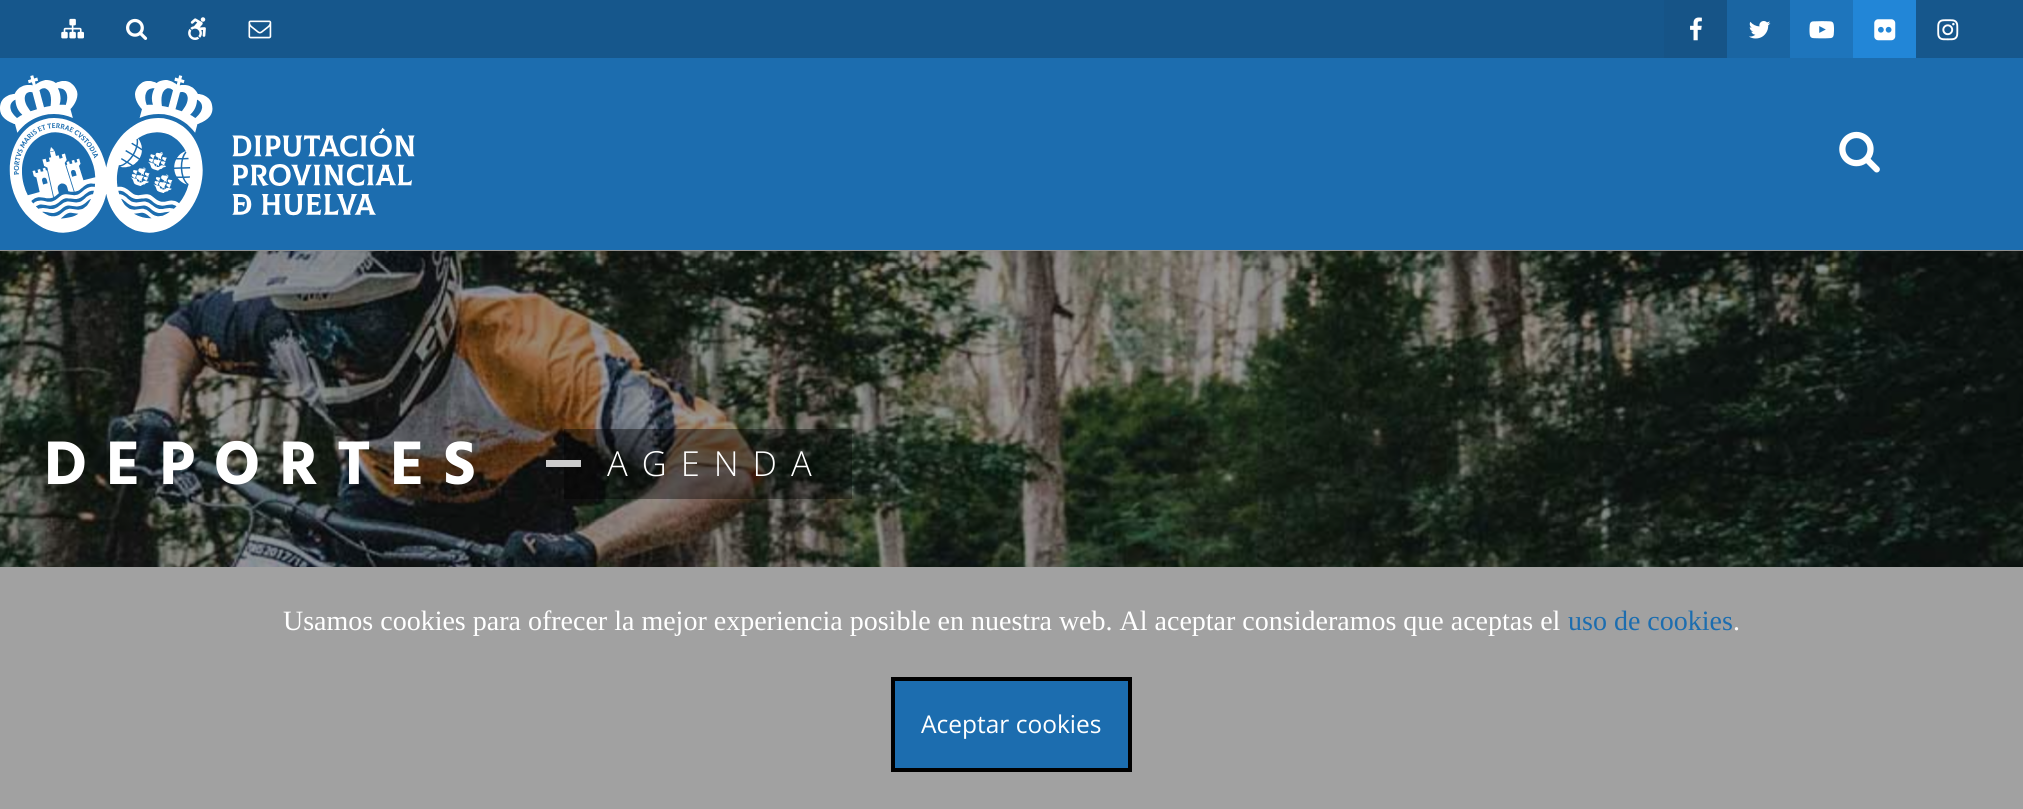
#include <cairo/cairo.h>
#include <math.h>
#include <stddef.h>

static cairo_t *cr;

static void rgb(unsigned color)
{
	cairo_set_source_rgb(cr, (color >> 16) / 255.0, (color >> 8 & 255) / 255.0, (color & 255) / 255.0);
}

static void tracked(double x, double y, const char *s, double letter, double word)
{
	cairo_move_to(cr, x, y);
	while (*s) {
		char ch[5] = {0};
		int n = 0;
		do ch[n++] = *s++; while ((*s & 0xC0) == 0x80);
		cairo_show_text(cr, ch);
		cairo_rel_move_to(cr, letter + word * (*ch == ' '), 0);
	}
}

static void rrect(double x, double y, double w, double h, double r)
{
	cairo_new_sub_path(cr);
	cairo_arc(cr, x + w - r, y + h - r, r, 0, M_PI / 2);
	cairo_arc(cr, x + r, y + h - r, r, M_PI / 2, M_PI);
	cairo_arc(cr, x + r, y + r, r, M_PI, 1.5 * M_PI);
	cairo_arc(cr, x + w - r, y + r, r, 1.5 * M_PI, 2 * M_PI);
	cairo_close_path(cr);
}

static void soft_shadow(double x, double y, double w, double h, double r, double blur, double alpha)
{
	cairo_push_group_with_content(cr, CAIRO_CONTENT_ALPHA);
	cairo_set_operator(cr, CAIRO_OPERATOR_SOURCE);
	for (int i = 15; i >= -15 && fmin(w, h) + blur * i / 3 > 0; i -= 2) {
		double e = blur * i / 6;
		cairo_set_source_rgba(cr, 0, 0, 0, alpha * erfc((i - 1) / 8.5) / 2);
		rrect(x - e, y - e, w + 2 * e, h + 2 * e, fmax(0, fmin(r + e + blur * .6, fmin(w, h) / 2 + e)));
		cairo_fill(cr);
	}
	cairo_pattern_t *soft = cairo_pop_group(cr);
	cairo_mask(cr, soft);
	cairo_pattern_destroy(soft);
}

static void image(const char *path, double x, double y, double w, double h)
{
	cairo_surface_t *image = cairo_image_surface_create_from_png(path);
	cairo_save(cr);
	cairo_set_source_surface(cr, image, x, y);
	cairo_rectangle(cr, x, y, w, h);
	cairo_fill(cr);
	cairo_restore(cr);
	cairo_surface_destroy(image);
}

int main(void) {
	cairo_surface_t *surface = cairo_image_surface_create(CAIRO_FORMAT_RGB24, 2023, 809);
	cr = cairo_create(surface);
	cairo_font_options_t *options = cairo_font_options_create();
	cairo_font_options_set_hint_metrics(options, CAIRO_HINT_METRICS_OFF);
	cairo_font_options_set_hint_style(options, CAIRO_HINT_STYLE_NONE);
	cairo_set_font_options(cr, options);
	cairo_set_miter_limit(cr, 4);
	rgb(0x999999);
	cairo_paint(cr);
	image("img/1.png", 0, 251, 2023, 316);
	rgb(0x000000);
	soft_shadow(-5, -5, 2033, 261, 0, 17.5, 0.1);
	rgb(0x1c6daf);
	cairo_rectangle(cr, 0, 58, 2023, 192);
	cairo_fill(cr);
	rgb(0x16578c);
	cairo_rectangle(cr, 0, 0, 2023, 58);
	cairo_fill(cr);
	image("img/2.png", 61, 18, 23, 21);
	image("img/3.png", 126, 18, 22, 22);
	image("img/4.png", 188, 17, 18, 23);
	image("img/5.png", 248, 20, 24, 19);
	rgb(0x165487);
	cairo_rectangle(cr, 1664, 0, 63, 58);
	cairo_fill(cr);
	image("img/6.png", 1690, 17, 12, 24);
	rgb(0x1a65a2);
	cairo_rectangle(cr, 1727, 0, 63, 58);
	cairo_fill(cr);
	image("img/7.png", 1749, 21, 22, 18);
	rgb(0x1e75bc);
	cairo_rectangle(cr, 1790, 0, 63, 58);
	cairo_fill(cr);
	image("img/8.png", 1809, 21, 25, 18);
	rgb(0x2286d7);
	cairo_rectangle(cr, 1853, 0, 63, 58);
	cairo_fill(cr);
	image("img/9.png", 1874, 19, 22, 22);
	image("img/10.png", 1937, 19, 22, 22);
	image("img/11.png", 0, 75, 415, 158);
	image("img/12.png", 1839, 131, 41, 42);
	cairo_set_source_rgba(cr, 0, 0, 0, 0.4);
	cairo_rectangle(cr, 564, 429, 288, 70);
	cairo_fill(cr);
	rgb(0xcccccc);
	cairo_rectangle(cr, 546, 460, 35, 7);
	cairo_fill(cr);
	rgb(0xa1a1a1);
	cairo_rectangle(cr, 0, 567, 2023, 242);
	cairo_fill(cr);
	rgb(0x1c6daf);
	cairo_rectangle(cr, 893, 679, 237, 91);
	cairo_fill_preserve(cr);
	rgb(0x000000);
	cairo_set_line_width(cr, 4);
	cairo_stroke(cr);
	cairo_select_font_face(cr, "Hind", CAIRO_FONT_SLANT_NORMAL, CAIRO_FONT_WEIGHT_BOLD);
	cairo_set_font_size(cr, 63);
	rgb(0xffffff);
	tracked(44, 484, "DEPORTES", 19, 0);
	cairo_select_font_face(cr, "Open Sans Light", CAIRO_FONT_SLANT_NORMAL, CAIRO_FONT_WEIGHT_NORMAL);
	cairo_set_font_size(cr, 34.5);
	tracked(607, 476, "AGENDA", 14, 0);
	cairo_select_font_face(cr, "Liberation Serif", CAIRO_FONT_SLANT_NORMAL, CAIRO_FONT_WEIGHT_NORMAL);
	cairo_set_font_size(cr, 28);
	cairo_move_to(cr, 283, 630);
	cairo_show_text(cr, "Usamos cookies para ofrecer la mejor experiencia posible en nuestra web. Al aceptar consideramos que aceptas el");
	rgb(0x1c6daf);
	cairo_move_to(cr, 1568, 630);
	cairo_show_text(cr, "uso de cookies");
	rgb(0xffffff);
	cairo_move_to(cr, 1733, 630);
	cairo_show_text(cr, ".");
	cairo_select_font_face(cr, "Open Sans", CAIRO_FONT_SLANT_NORMAL, CAIRO_FONT_WEIGHT_NORMAL);
	cairo_set_font_size(cr, 24.5);
	cairo_move_to(cr, 921, 733);
	cairo_show_text(cr, "Aceptar cookies");
	cairo_surface_write_to_png(surface, "page.png");
	cairo_font_options_destroy(options);
	cairo_destroy(cr);
	cairo_surface_destroy(surface);
	return 0;
}
